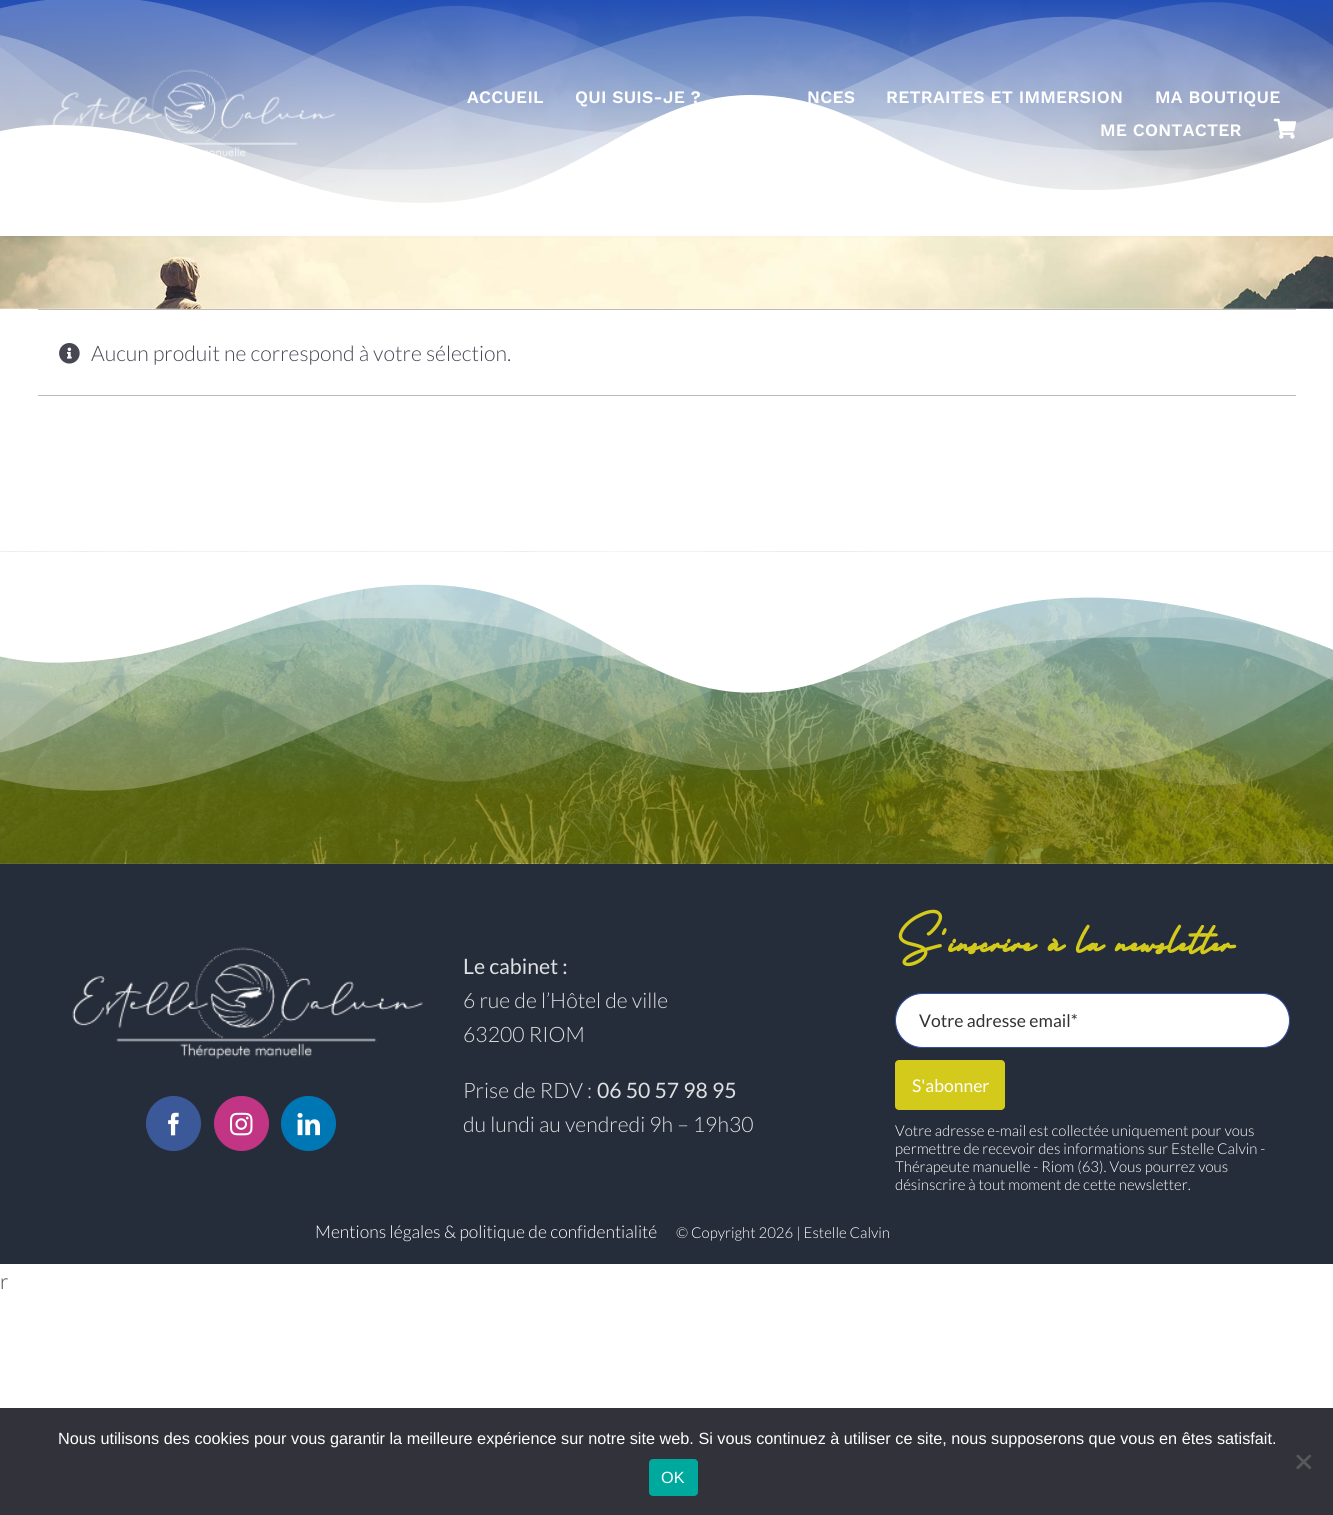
#include <cairo/cairo.h>
#include <math.h>
#include <stddef.h>

typedef struct { double x, y; const char *s; } line_t;
static cairo_t *cr;

static void rgb(unsigned color)
{
	cairo_set_source_rgb(cr, (color >> 16) / 255.0, (color >> 8 & 255) / 255.0, (color & 255) / 255.0);
}

static void tracked(double x, double y, const char *s, double letter, double word)
{
	cairo_move_to(cr, x, y);
	while (*s) {
		char ch[5] = {0};
		int n = 0;
		do ch[n++] = *s++; while ((*s & 0xC0) == 0x80);
		cairo_show_text(cr, ch);
		cairo_rel_move_to(cr, letter + word * (*ch == ' '), 0);
	}
}

static void rrect(double x, double y, double w, double h, double r)
{
	cairo_new_sub_path(cr);
	cairo_arc(cr, x + w - r, y + h - r, r, 0, M_PI / 2);
	cairo_arc(cr, x + r, y + h - r, r, M_PI / 2, M_PI);
	cairo_arc(cr, x + r, y + r, r, M_PI, 1.5 * M_PI);
	cairo_arc(cr, x + w - r, y + r, r, 1.5 * M_PI, 2 * M_PI);
	cairo_close_path(cr);
}

static void image(const char *path, double x, double y, double w, double h)
{
	cairo_surface_t *image = cairo_image_surface_create_from_png(path);
	cairo_save(cr);
	cairo_set_source_surface(cr, image, x, y);
	cairo_rectangle(cr, x, y, w, h);
	cairo_fill(cr);
	cairo_restore(cr);
	cairo_surface_destroy(image);
}

int main(void) {
	cairo_surface_t *surface = cairo_image_surface_create(CAIRO_FORMAT_RGB24, 1333, 1515);
	cr = cairo_create(surface);
	cairo_font_options_t *options = cairo_font_options_create();
	cairo_font_options_set_hint_metrics(options, CAIRO_HINT_METRICS_OFF);
	cairo_font_options_set_hint_style(options, CAIRO_HINT_STYLE_NONE);
	cairo_set_font_options(cr, options);
	cairo_set_miter_limit(cr, 4);
	rgb(0xffffff);
	cairo_paint(cr);
	image("img/1.png", 0, 0, 1333, 309);
	image("img/2.png", 0, 0, 1333, 236);
	image("img/3.png", 52, 69, 284, 88);
	image("img/4.png", 1273, 118, 24, 21);
	rgb(0xbfbab5);
	cairo_rectangle(cr, 38, 309, 1258, 1);
	cairo_fill(cr);
	cairo_rectangle(cr, 38, 395, 1258, 1);
	cairo_fill(cr);
	image("img/5.png", 59, 343, 21, 21);
	image("img/6.png", 0, 551, 1333, 313);
	image("img/7.png", 0, 551, 1333, 240);
	rgb(0x262d3a);
	cairo_rectangle(cr, 0, 864, 1333, 400);
	cairo_fill(cr);
	image("img/8.png", 72, 947, 351, 112);
	rgb(0x3b5998);
	cairo_arc(cr, 173.5, 1123.5, 27, 0, 2 * M_PI);
	cairo_fill_preserve(cr);
	cairo_set_line_width(cr, 1);
	cairo_stroke(cr);
	image("img/9.png", 168, 1112, 11, 24);
	rgb(0xc13584);
	cairo_arc(cr, 241.5, 1123.5, 27, 0, 2 * M_PI);
	cairo_fill_preserve(cr);
	cairo_stroke(cr);
	image("img/10.png", 230, 1112, 23, 24);
	rgb(0x0077b5);
	cairo_arc(cr, 308.5, 1123.5, 27, 0, 2 * M_PI);
	cairo_fill_preserve(cr);
	cairo_stroke(cr);
	image("img/11.png", 297, 1113, 23, 23);
	rgb(0xffffff);
	rrect(895.5, 993.5, 394, 54, 27);
	cairo_fill_preserve(cr);
	rgb(0x304fa5);
	cairo_stroke(cr);
	rgb(0xd3ca1c);
	rrect(895, 1060, 110, 50, 4);
	cairo_fill(cr);
	rgb(0x32323a);
	cairo_rectangle(cr, 0, 1408, 1333, 107);
	cairo_fill(cr);
	rgb(0x59595d);
	cairo_new_path(cr);
	cairo_move_to(cr, 1309.5, 1454.5);
	cairo_line_to(cr, 1311.5, 1456);
	cairo_line_to(cr, 1298, 1469.5);
	cairo_line_to(cr, 1296, 1467.5);
	cairo_close_path(cr);
	cairo_fill(cr);
	cairo_new_path(cr);
	cairo_move_to(cr, 1296, 1456);
	cairo_line_to(cr, 1298, 1454.5);
	cairo_line_to(cr, 1311.5, 1467.5);
	cairo_line_to(cr, 1309.5, 1469.5);
	cairo_close_path(cr);
	cairo_fill(cr);
	rgb(0x00a99d);
	rrect(649, 1459, 49, 37, 4);
	cairo_fill(cr);
	cairo_select_font_face(cr, "Work Sans SemiBold", CAIRO_FONT_SLANT_NORMAL, CAIRO_FONT_WEIGHT_NORMAL);
	cairo_set_font_size(cr, 17.5);
	rgb(0xffffff);
	{
		static const line_t items[] = {
			{467, 103, "ACCUEIL"},
			{575, 103, "QUI SUIS-JE ?"},
			{807, 103, "NCES"},
			{886, 103, "RETRAITES ET IMMERSION"},
			{1155, 103, "MA BOUTIQUE"},
			{1100, 136, "ME CONTACTER"},
		};
		for (size_t i = 0; i < sizeof items / sizeof *items; i++) {
			tracked(items[i].x, items[i].y, items[i].s, 0.25, 0);
		}
	}
	cairo_select_font_face(cr, "Lato Light", CAIRO_FONT_SLANT_NORMAL, CAIRO_FONT_WEIGHT_NORMAL);
	cairo_set_font_size(cr, 21.25);
	rgb(0x474754);
	cairo_move_to(cr, 91, 361);
	cairo_show_text(cr, "Aucun produit ne correspond à votre sélection.");
	cairo_select_font_face(cr, "Lato", CAIRO_FONT_SLANT_NORMAL, CAIRO_FONT_WEIGHT_NORMAL);
	rgb(0xdee0e1);
	cairo_move_to(cr, 463, 974);
	cairo_show_text(cr, "Le cabinet :");
	cairo_select_font_face(cr, "Lato Light", CAIRO_FONT_SLANT_NORMAL, CAIRO_FONT_WEIGHT_NORMAL);
	{
		static const line_t items[] = {
			{463, 1008, "6 rue de l’Hôtel de ville"},
			{463, 1042, "63200 RIOM"},
			{463, 1098, "Prise de RDV :"},
		};
		for (size_t i = 0; i < sizeof items / sizeof *items; i++) {
			cairo_move_to(cr, items[i].x, items[i].y);
			cairo_show_text(cr, items[i].s);
		}
	}
	cairo_select_font_face(cr, "Lato", CAIRO_FONT_SLANT_NORMAL, CAIRO_FONT_WEIGHT_NORMAL);
	cairo_move_to(cr, 597, 1098);
	cairo_show_text(cr, "06 50 57 98 95");
	cairo_select_font_face(cr, "Lato Light", CAIRO_FONT_SLANT_NORMAL, CAIRO_FONT_WEIGHT_NORMAL);
	cairo_move_to(cr, 463, 1132);
	cairo_show_text(cr, "du lundi au vendredi 9h – 19h30");
	cairo_select_font_face(cr, "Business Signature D", CAIRO_FONT_SLANT_NORMAL, CAIRO_FONT_WEIGHT_BOLD);
	cairo_set_font_size(cr, 75);
	rgb(0xd3ca1c);
	tracked(895, 965, "S'inscrire à la newsletter", 0.25, 0);
	cairo_select_font_face(cr, "Lato", CAIRO_FONT_SLANT_NORMAL, CAIRO_FONT_WEIGHT_NORMAL);
	cairo_set_font_size(cr, 17.5);
	rgb(0x333333);
	cairo_move_to(cr, 919, 1027);
	cairo_show_text(cr, "Votre adresse email*");
	rgb(0xffffff);
	cairo_move_to(cr, 912, 1092);
	cairo_show_text(cr, "S'abonner");
	cairo_select_font_face(cr, "Lato Light", CAIRO_FONT_SLANT_NORMAL, CAIRO_FONT_WEIGHT_NORMAL);
	cairo_set_font_size(cr, 15);
	{
		static const line_t items[] = {
			{895, 1136, "Votre adresse e-mail est collectée uniquement pour vous"},
			{895, 1154, "permettre de recevoir des informations sur Estelle Calvin -"},
			{895, 1172, "Thérapeute manuelle - Riom (63). Vous pourrez vous"},
			{895, 1190, "désinscrire à tout moment de cette newsletter."},
		};
		for (size_t i = 0; i < sizeof items / sizeof *items; i++) {
			cairo_move_to(cr, items[i].x, items[i].y);
			cairo_show_text(cr, items[i].s);
		}
	}
	cairo_set_font_size(cr, 17.5);
	cairo_move_to(cr, 315, 1238);
	cairo_show_text(cr, "Mentions légales & politique de confidentialité");
	cairo_set_font_size(cr, 15);
	cairo_move_to(cr, 676, 1238);
	cairo_show_text(cr, "© Copyright 2026 | Estelle Calvin");
	cairo_set_font_size(cr, 21.25);
	rgb(0x474754);
	cairo_move_to(cr, 0, 1289);
	cairo_show_text(cr, "r");
	cairo_select_font_face(cr, "Liberation Sans", CAIRO_FONT_SLANT_NORMAL, CAIRO_FONT_WEIGHT_NORMAL);
	cairo_set_font_size(cr, 16.25);
	rgb(0xffffff);
	cairo_move_to(cr, 58, 1444);
	cairo_show_text(cr, "Nous utilisons des cookies pour vous garantir la meilleure expérience sur notre site web. Si vous continuez à utiliser ce site, nous supposerons que vous en êtes satisfait.");
	cairo_move_to(cr, 661, 1483);
	cairo_show_text(cr, "OK");
	cairo_surface_write_to_png(surface, "page.png");
	cairo_font_options_destroy(options);
	cairo_destroy(cr);
	cairo_surface_destroy(surface);
	return 0;
}
